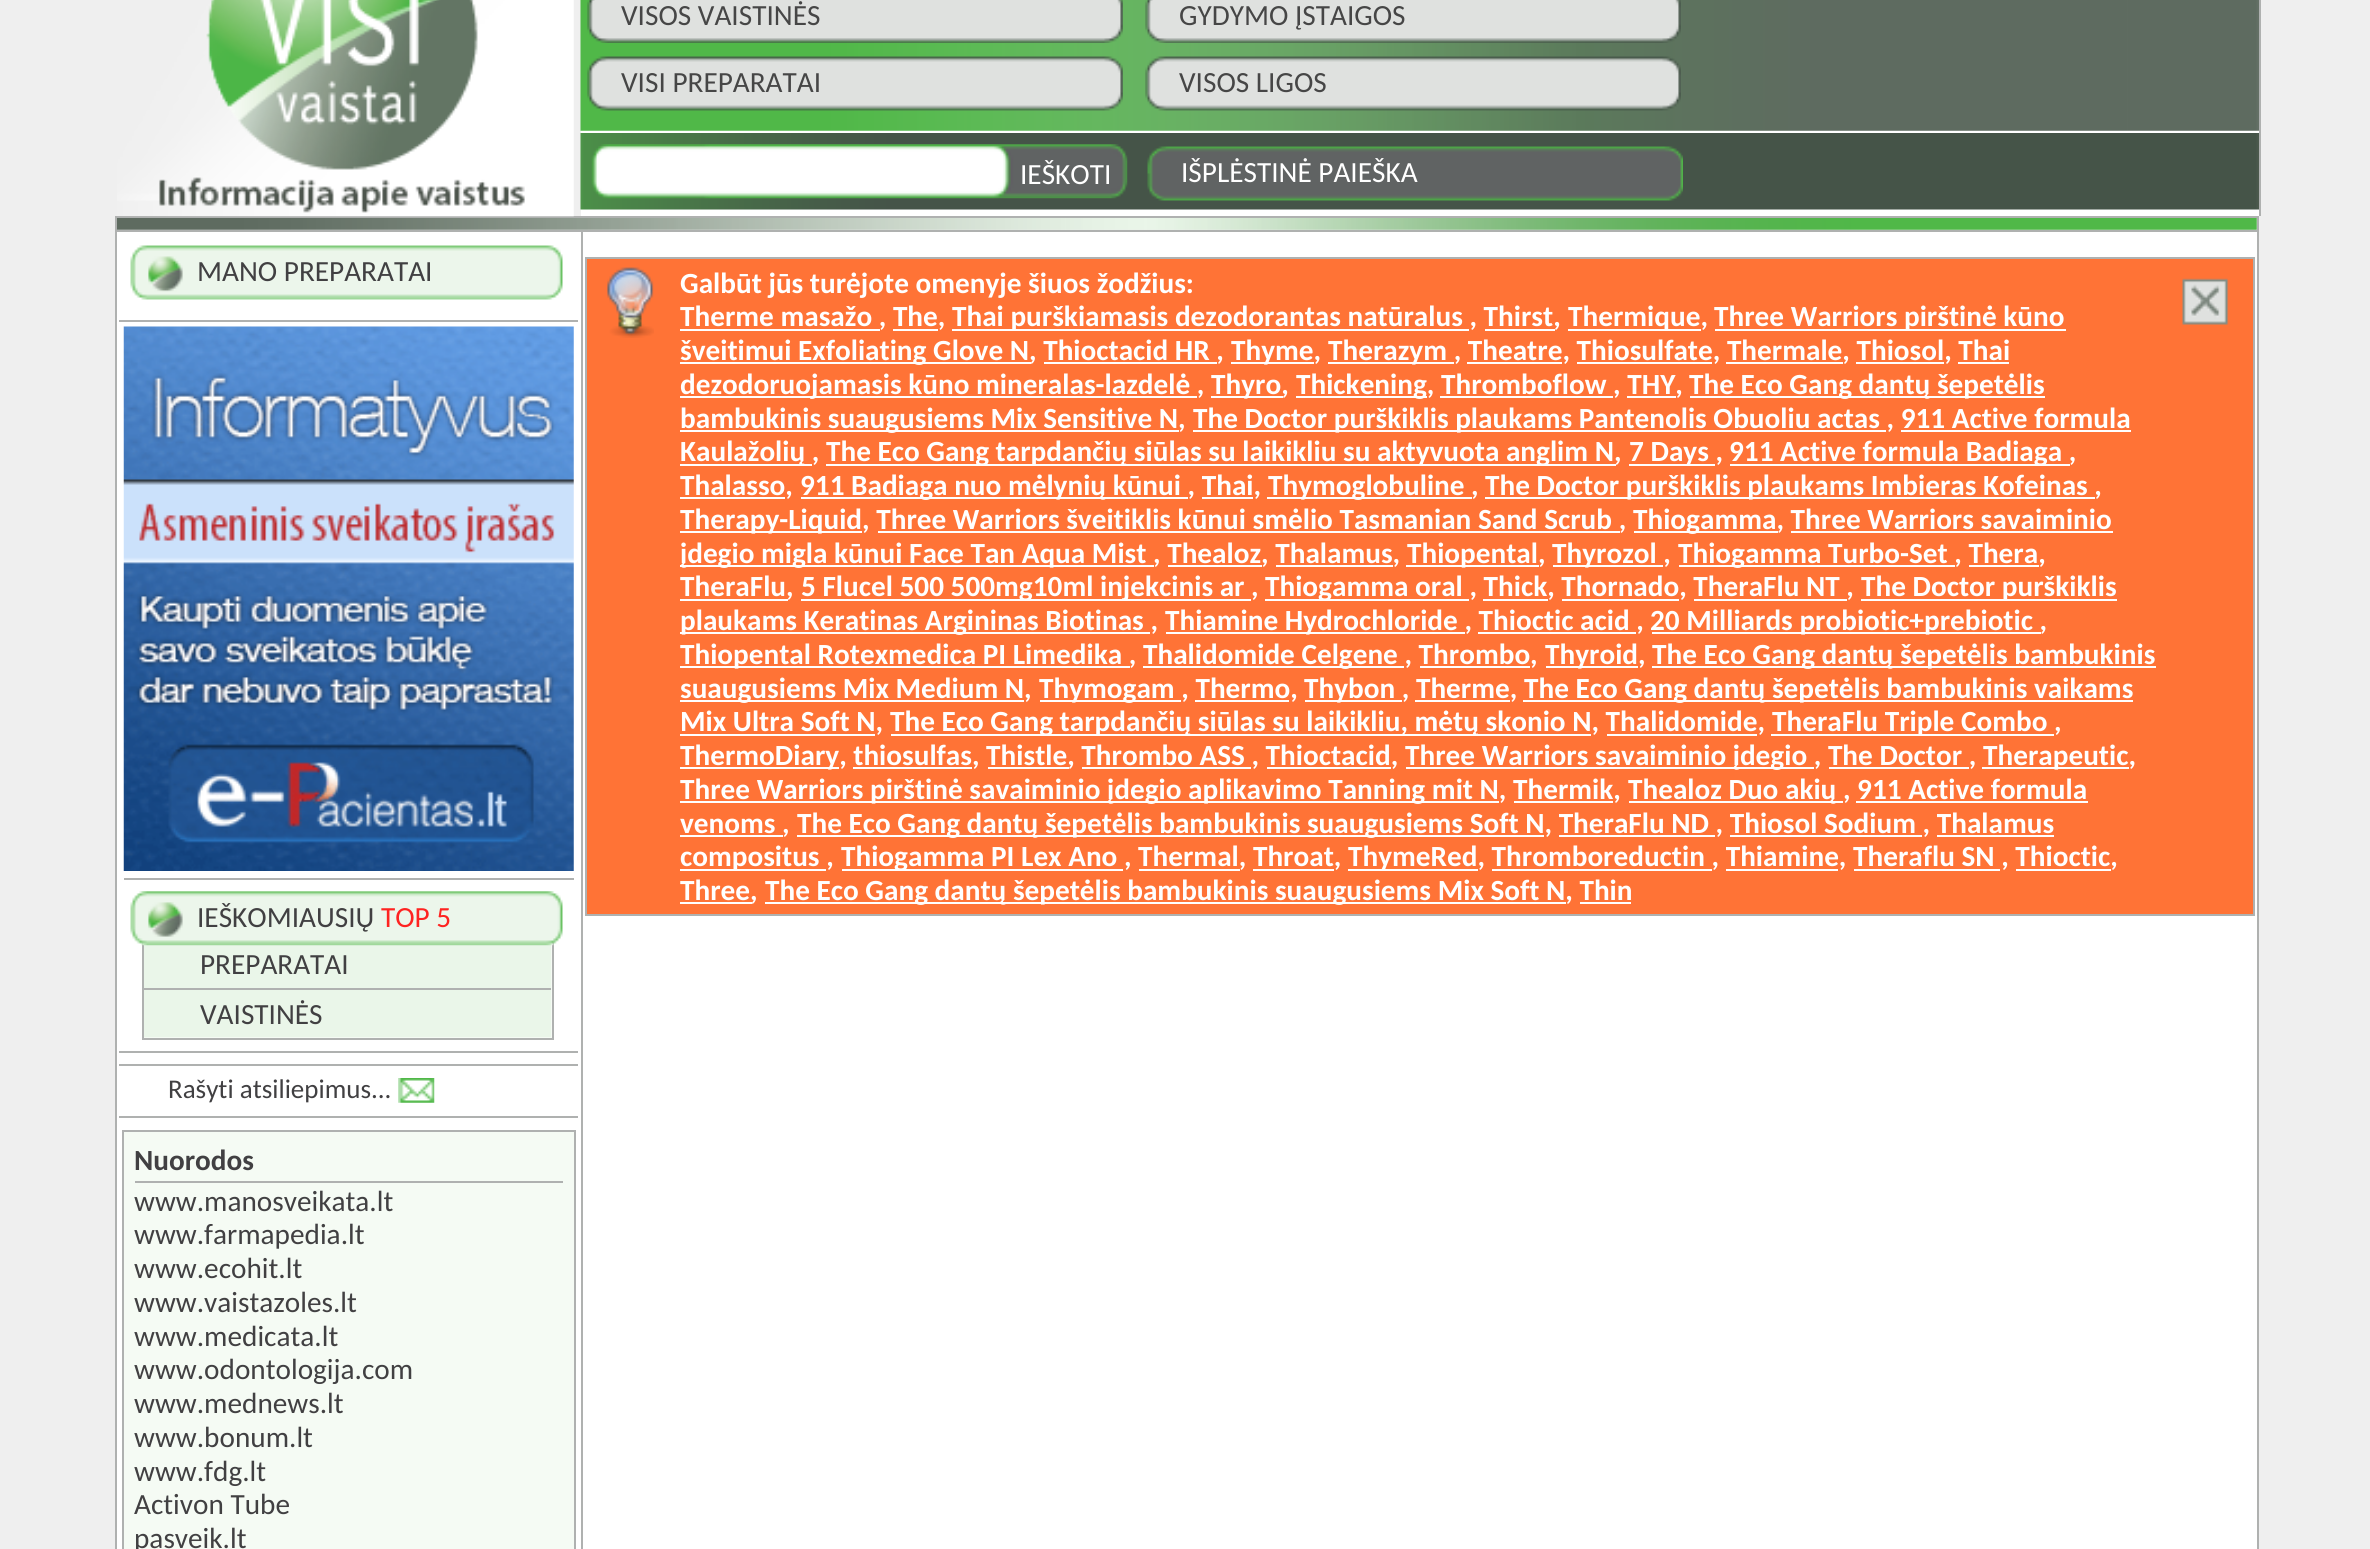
#include <cairo/cairo.h>
#include <math.h>
#include <stddef.h>

typedef struct { double x, y; const char *s; } line_t;
typedef struct { double x, y, w, h; unsigned color; } box_t;
static cairo_t *cr;

static void rgb(unsigned color)
{
	cairo_set_source_rgb(cr, (color >> 16) / 255.0, (color >> 8 & 255) / 255.0, (color & 255) / 255.0);
}

static void image(const char *path, double x, double y, double w, double h)
{
	cairo_surface_t *image = cairo_image_surface_create_from_png(path);
	cairo_save(cr);
	cairo_set_source_surface(cr, image, x, y);
	cairo_rectangle(cr, x, y, w, h);
	cairo_fill(cr);
	cairo_restore(cr);
	cairo_surface_destroy(image);
}

int main(void) {
	cairo_surface_t *surface = cairo_image_surface_create(CAIRO_FORMAT_RGB24, 2370, 1549);
	cr = cairo_create(surface);
	cairo_font_options_t *options = cairo_font_options_create();
	cairo_font_options_set_hint_metrics(options, CAIRO_HINT_METRICS_OFF);
	cairo_font_options_set_hint_style(options, CAIRO_HINT_STYLE_NONE);
	cairo_set_font_options(cr, options);
	cairo_set_miter_limit(cr, 4);
	rgb(0xefefef);
	cairo_paint(cr);
	rgb(0xafb1b0);
	cairo_rectangle(cr, 2259, 0, 2, 216);
	cairo_fill(cr);
	cairo_rectangle(cr, 115, 216, 2144, 2);
	cairo_fill(cr);
	image("img/1.png", 117, 0, 457, 217);
	rgb(0xffffff);
	cairo_rectangle(cr, 581, 130, 1678, 86);
	cairo_fill(cr);
	image("img/2.png", 580, 0, 1679, 131);
	image("img/3.png", 587, 0, 536, 43);
	image("img/4.png", 1145, 0, 536, 43);
	image("img/5.png", 587, 56, 536, 55);
	image("img/6.png", 1145, 56, 536, 55);
	image("img/7.png", 580, 133, 1679, 77);
	image("img/8.png", 591, 144, 537, 55);
	image("img/9.png", 1147, 146, 536, 55);
	image("img/10.png", 117, 218, 2140, 12);
	rgb(0xafb1b0);
	cairo_rectangle(cr, 2257, 216, 2, 14);
	cairo_fill(cr);
	cairo_rectangle(cr, 115, 216, 2, 14);
	cairo_fill(cr);
	rgb(0xffffff);
	cairo_rectangle(cr, 116, 231, 2142, 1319);
	cairo_fill_preserve(cr);
	rgb(0xafb1b0);
	cairo_stroke(cr);
	cairo_rectangle(cr, 581, 232, 2, 1317);
	cairo_fill(cr);
	image("img/11.png", 130, 245, 433, 55);
	cairo_rectangle(cr, 119, 320, 459, 2);
	cairo_fill(cr);
	image("img/12.png", 123, 326, 451, 545);
	cairo_rectangle(cr, 124, 878, 450, 2);
	cairo_fill(cr);
	rgb(0xf5fbf4);
	cairo_rectangle(cr, 144, 942, 408, 96);
	cairo_fill(cr);
	cairo_rectangle(cr, 143, 933, 410, 106);
	rgb(0xafb1b0);
	cairo_stroke(cr);
	rgb(0xeaf6e9);
	cairo_rectangle(cr, 144, 942, 407, 46);
	cairo_fill(cr);
	image("img/13.png", 130, 891, 433, 55);
	{
		static const box_t items[] = {
			{144, 990, 407, 47, 0xeaf6e9},
			{144, 988, 407, 2, 0xafb1b0},
			{119, 1051, 459, 2, 0xafb1b0},
			{119, 1064, 459, 2, 0xafb1b0},
		};
		for (size_t i = 0; i < sizeof items / sizeof *items; i++) {
			rgb(items[i].color);
			cairo_rectangle(cr, items[i].x, items[i].y, items[i].w, items[i].h);
			cairo_fill(cr);
		}
	}
	image("img/14.png", 398, 1078, 37, 25);
	cairo_rectangle(cr, 119, 1116, 459, 2);
	cairo_fill(cr);
	rgb(0xf5fbf4);
	cairo_rectangle(cr, 123, 1131, 452, 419);
	cairo_fill_preserve(cr);
	rgb(0xafb1b0);
	cairo_stroke(cr);
	cairo_rectangle(cr, 135, 1181, 428, 2);
	cairo_fill(cr);
	rgb(0xff7336);
	cairo_rectangle(cr, 586, 258, 1668, 657);
	cairo_fill_preserve(cr);
	rgb(0xafb1b0);
	cairo_stroke(cr);
	image("img/15.png", 607, 267, 47, 71);
	{
		static const box_t items[] = {
			{680, 329, 200, 2, 0xffffff},
			{952, 329, 517, 2, 0xffffff},
			{1568, 329, 133, 2, 0xffffff},
			{1715, 329, 351, 2, 0xffffff},
			{893, 329, 45, 2, 0xffffff},
			{1485, 329, 70, 2, 0xffffff},
			{680, 362, 351, 2, 0xffffff},
			{1231, 362, 83, 2, 0xffffff},
			{1328, 362, 126, 2, 0xffffff},
			{1044, 362, 173, 2, 0xffffff},
			{1467, 362, 95, 2, 0xffffff},
			{1577, 362, 135, 2, 0xffffff},
			{1726, 362, 117, 2, 0xffffff},
			{1856, 362, 88, 2, 0xffffff},
			{1958, 362, 51, 2, 0xffffff},
			{680, 396, 517, 2, 0xffffff},
			{1211, 396, 72, 2, 0xffffff},
			{1296, 396, 131, 2, 0xffffff},
			{1690, 396, 355, 2, 0xffffff},
			{1440, 396, 173, 2, 0xffffff},
			{1627, 396, 49, 2, 0xffffff},
			{680, 430, 499, 2, 0xffffff},
			{1193, 430, 693, 2, 0xffffff},
			{1901, 430, 230, 2, 0xffffff},
			{680, 464, 132, 2, 0xffffff},
			{826, 464, 790, 2, 0xffffff},
			{1629, 464, 86, 2, 0xffffff},
			{1730, 464, 340, 2, 0xffffff},
			{680, 497, 105, 2, 0xffffff},
			{801, 497, 387, 2, 0xffffff},
			{1267, 497, 205, 2, 0xffffff},
			{1485, 497, 610, 2, 0xffffff},
			{1202, 497, 51, 2, 0xffffff},
			{680, 531, 182, 2, 0xffffff},
			{1634, 531, 144, 2, 0xffffff},
			{878, 531, 742, 2, 0xffffff},
			{1791, 531, 322, 2, 0xffffff},
			{680, 565, 474, 2, 0xffffff},
			{1406, 565, 133, 2, 0xffffff},
			{1553, 565, 110, 2, 0xffffff},
			{1679, 565, 276, 2, 0xffffff},
			{1168, 565, 94, 2, 0xffffff},
			{1276, 565, 117, 2, 0xffffff},
			{1969, 565, 70, 2, 0xffffff},
			{680, 599, 108, 2, 0xffffff},
			{801, 599, 450, 2, 0xffffff},
			{1265, 599, 204, 2, 0xffffff},
			{1861, 599, 256, 2, 0xffffff},
			{1483, 599, 65, 2, 0xffffff},
			{1562, 599, 117, 2, 0xffffff},
			{1694, 599, 153, 2, 0xffffff},
			{680, 632, 470, 2, 0xffffff},
			{1166, 632, 299, 2, 0xffffff},
			{1652, 632, 389, 2, 0xffffff},
			{1478, 632, 158, 2, 0xffffff},
			{680, 666, 450, 2, 0xffffff},
			{1143, 666, 261, 2, 0xffffff},
			{1546, 666, 92, 2, 0xffffff},
			{1652, 666, 504, 2, 0xffffff},
			{1420, 666, 110, 2, 0xffffff},
			{680, 700, 344, 2, 0xffffff},
			{1040, 700, 141, 2, 0xffffff},
			{1305, 700, 97, 2, 0xffffff},
			{1523, 700, 610, 2, 0xffffff},
			{1195, 700, 94, 2, 0xffffff},
			{1415, 700, 95, 2, 0xffffff},
			{680, 734, 195, 2, 0xffffff},
			{891, 734, 700, 2, 0xffffff},
			{1771, 734, 283, 2, 0xffffff},
			{1607, 734, 150, 2, 0xffffff},
			{680, 767, 159, 2, 0xffffff},
			{1406, 767, 408, 2, 0xffffff},
			{1982, 767, 147, 2, 0xffffff},
			{853, 767, 119, 2, 0xffffff},
			{988, 767, 81, 2, 0xffffff},
			{1082, 767, 169, 2, 0xffffff},
			{1267, 767, 124, 2, 0xffffff},
			{1829, 767, 140, 2, 0xffffff},
			{680, 801, 819, 2, 0xffffff},
			{1629, 801, 214, 2, 0xffffff},
			{1514, 801, 99, 2, 0xffffff},
			{1856, 801, 232, 2, 0xffffff},
			{680, 835, 103, 2, 0xffffff},
			{797, 835, 747, 2, 0xffffff},
			{1559, 835, 156, 2, 0xffffff},
			{1730, 835, 192, 2, 0xffffff},
			{1937, 835, 117, 2, 0xffffff},
			{680, 869, 146, 2, 0xffffff},
			{842, 869, 281, 2, 0xffffff},
			{1348, 869, 130, 2, 0xffffff},
			{1139, 869, 101, 2, 0xffffff},
			{1253, 869, 81, 2, 0xffffff},
			{1492, 869, 220, 2, 0xffffff},
			{1726, 869, 112, 2, 0xffffff},
			{1854, 869, 146, 2, 0xffffff},
			{2016, 869, 95, 2, 0xffffff},
			{680, 902, 72, 2, 0xffffff},
			{765, 902, 801, 2, 0xffffff},
			{1580, 902, 51, 2, 0xffffff},
		};
		for (size_t i = 0; i < sizeof items / sizeof *items; i++) {
			rgb(items[i].color);
			cairo_rectangle(cr, items[i].x, items[i].y, items[i].w, items[i].h);
			cairo_fill(cr);
		}
	}
	image("img/16.png", 2182, 278, 47, 47);
	cairo_select_font_face(cr, "Carlito", CAIRO_FONT_SLANT_NORMAL, CAIRO_FONT_WEIGHT_NORMAL);
	cairo_set_font_size(cr, 29.25);
	rgb(0x464646);
	{
		static const line_t items[] = {
			{621, 25, "VISOS VAISTINĖS"},
			{1179, 25, "GYDYMO ĮSTAIGOS"},
			{621, 92, "VISI PREPARATAI"},
			{1179, 92, "VISOS LIGOS"},
		};
		for (size_t i = 0; i < sizeof items / sizeof *items; i++) {
			cairo_move_to(cr, items[i].x, items[i].y);
			cairo_show_text(cr, items[i].s);
		}
	}
	rgb(0xffffff);
	cairo_move_to(cr, 1020, 184);
	cairo_show_text(cr, "IEŠKOTI");
	cairo_move_to(cr, 1181, 182);
	cairo_show_text(cr, "IŠPLĖSTINĖ PAIEŠKA");
	rgb(0x414042);
	cairo_move_to(cr, 197, 281);
	cairo_show_text(cr, "MANO PREPARATAI");
	cairo_move_to(cr, 197, 927);
	cairo_show_text(cr, "IEŠKOMIAUSIŲ");
	rgb(0xfe2321);
	cairo_move_to(cr, 381, 927);
	cairo_show_text(cr, "TOP 5");
	rgb(0x414042);
	cairo_move_to(cr, 200, 974);
	cairo_show_text(cr, "PREPARATAI");
	cairo_move_to(cr, 200, 1024);
	cairo_show_text(cr, "VAISTINĖS");
	cairo_set_font_size(cr, 27);
	cairo_move_to(cr, 168, 1098);
	cairo_show_text(cr, "Rašyti atsiliepimus...");
	cairo_select_font_face(cr, "Carlito", CAIRO_FONT_SLANT_NORMAL, CAIRO_FONT_WEIGHT_BOLD);
	cairo_set_font_size(cr, 29.25);
	cairo_move_to(cr, 134, 1170);
	cairo_show_text(cr, "Nuorodos");
	cairo_select_font_face(cr, "Carlito", CAIRO_FONT_SLANT_NORMAL, CAIRO_FONT_WEIGHT_NORMAL);
	{
		static const line_t items[] = {
			{134, 1211, "www.manosveikata.lt"},
			{134, 1244, "www.farmapedia.lt"},
			{134, 1278, "www.ecohit.lt"},
			{134, 1312, "www.vaistazoles.lt"},
			{134, 1346, "www.medicata.lt"},
			{134, 1379, "www.odontologija.com"},
			{134, 1413, "www.mednews.lt"},
			{134, 1447, "www.bonum.lt"},
			{134, 1481, "www.fdg.lt"},
			{134, 1514, "Activon Tube"},
			{134, 1548, "pasveik.lt"},
		};
		for (size_t i = 0; i < sizeof items / sizeof *items; i++) {
			cairo_move_to(cr, items[i].x, items[i].y);
			cairo_show_text(cr, items[i].s);
		}
	}
	cairo_select_font_face(cr, "Carlito", CAIRO_FONT_SLANT_NORMAL, CAIRO_FONT_WEIGHT_BOLD);
	rgb(0xffffff);
	{
		static const line_t items[] = {
			{680, 293, "Galbūt jūs turėjote omenyje šiuos žodžius:"},
			{680, 326, "Therme masažo , The,"},
			{952, 326, "Thai purškiamasis dezodorantas natūralus , Thirst,"},
			{1568, 326, "Thermique,"},
			{1714, 326, "Three Warriors pirštinė kūno"},
			{680, 360, "šveitimui Exfoliating Glove N, Thioctacid HR ,"},
			{1231, 360, "Thyme,"},
			{1328, 360, "Therazym , Theatre, Thiosulfate, Thermale, Thiosol, Thai"},
			{680, 394, "dezodoruojamasis kūno mineralas-lazdelė ,"},
			{1211, 394, "Thyro,"},
			{1296, 394, "Thickening, Thromboflow , THY,"},
			{1689, 394, "The Eco Gang dantų šepetėlis"},
			{680, 428, "bambukinis suaugusiems Mix Sensitive N,"},
			{1193, 428, "The Doctor purškiklis plaukams Pantenolis Obuoliu actas , 911 Active formula"},
			{680, 461, "Kaulažolių ,"},
			{826, 461, "The Eco Gang tarpdančių siūlas su laikikliu su aktyvuota anglim N,"},
			{1629, 461, "7 Days ,"},
			{1729, 461, "911 Active formula Badiaga ,"},
			{680, 495, "Thalasso,"},
			{800, 495, "911 Badiaga nuo mėlynių kūnui , Thai,"},
			{1268, 495, "Thymoglobuline ,"},
			{1485, 495, "The Doctor purškiklis plaukams Imbieras Kofeinas ,"},
			{680, 529, "Therapy-Liquid, Three Warriors šveitiklis kūnui smėlio Tasmanian Sand Scrub ,"},
			{1633, 529, "Thiogamma, Three Warriors savaiminio"},
			{680, 563, "įdegio migla kūnui Face Tan Aqua Mist , Thealoz, Thalamus,"},
			{1407, 563, "Thiopental,"},
			{1552, 563, "Thyrozol ,"},
			{1678, 563, "Thiogamma Turbo-Set , Thera,"},
			{680, 596, "TheraFlu,"},
			{801, 596, "5 Flucel 500 500mg10ml injekcinis ar ,"},
			{1265, 596, "Thiogamma oral , Thick, Thornado, TheraFlu NT ,"},
			{1861, 596, "The Doctor purškiklis"},
			{680, 630, "plaukams Keratinas Argininas Biotinas ,"},
			{1165, 630, "Thiamine Hydrochloride , Thioctic acid ,"},
			{1650, 630, "20 Milliards probiotic+prebiotic ,"},
			{680, 664, "Thiopental Rotexmedica PI Limedika ,"},
			{1143, 664, "Thalidomide Celgene , Thrombo,"},
			{1545, 664, "Thyroid,"},
			{1652, 664, "The Eco Gang dantų šepetėlis bambukinis"},
			{680, 698, "suaugusiems Mix Medium N,"},
			{1039, 698, "Thymogam , Thermo,"},
			{1304, 698, "Thybon , Therme,"},
			{1524, 698, "The Eco Gang dantų šepetėlis bambukinis vaikams"},
			{680, 731, "Mix Ultra Soft N,"},
			{890, 731, "The Eco Gang tarpdančių siūlas su laikikliu, mėtų skonio N, Thalidomide,"},
			{1772, 731, "TheraFlu Triple Combo ,"},
			{680, 765, "ThermoDiary, thiosulfas, Thistle, Thrombo ASS , Thioctacid,"},
			{1405, 765, "Three Warriors savaiminio įdegio , The Doctor ,"},
			{1983, 765, "Therapeutic,"},
			{680, 799, "Three Warriors pirštinė savaiminio įdegio aplikavimo Tanning mit N, Thermik,"},
			{1628, 799, "Thealoz Duo akių , 911 Active formula"},
			{680, 833, "venoms ,"},
			{797, 833, "The Eco Gang dantų šepetėlis bambukinis suaugusiems Soft N, TheraFlu ND , Thiosol Sodium , Thalamus"},
			{680, 866, "compositus ,"},
			{841, 866, "Thiogamma PI Lex Ano , Thermal, Throat,"},
			{1348, 866, "ThymeRed, Thromboreductin , Thiamine, Theraflu SN , Thioctic,"},
			{680, 900, "Three,"},
			{765, 900, "The Eco Gang dantų šepetėlis bambukinis suaugusiems Mix Soft N, Thin"},
		};
		for (size_t i = 0; i < sizeof items / sizeof *items; i++) {
			cairo_move_to(cr, items[i].x, items[i].y);
			cairo_show_text(cr, items[i].s);
		}
	}
	cairo_surface_write_to_png(surface, "page.png");
	cairo_font_options_destroy(options);
	cairo_destroy(cr);
	cairo_surface_destroy(surface);
	return 0;
}
